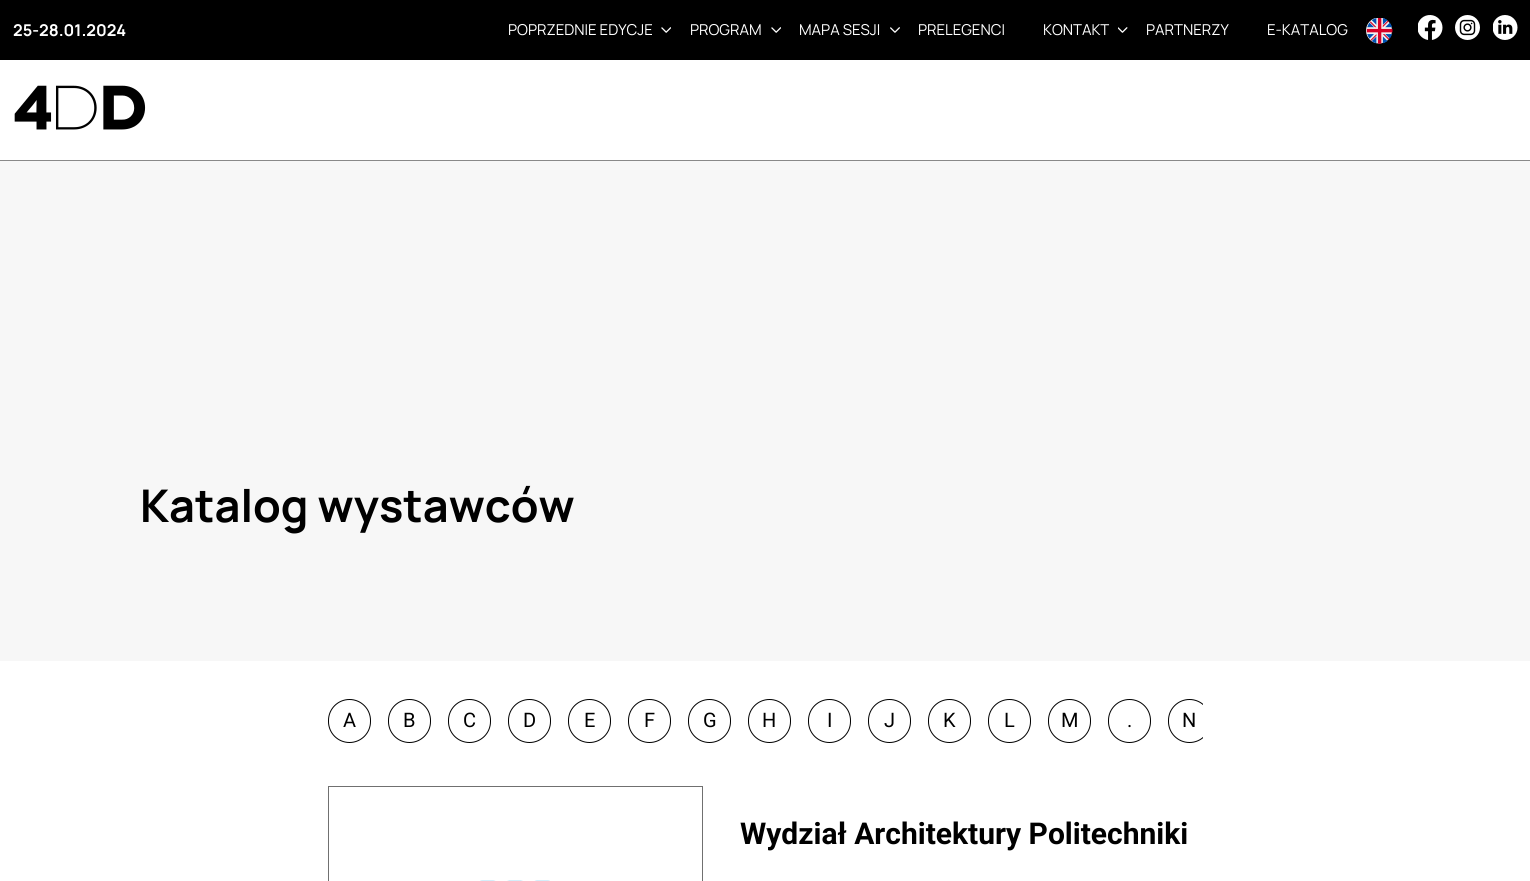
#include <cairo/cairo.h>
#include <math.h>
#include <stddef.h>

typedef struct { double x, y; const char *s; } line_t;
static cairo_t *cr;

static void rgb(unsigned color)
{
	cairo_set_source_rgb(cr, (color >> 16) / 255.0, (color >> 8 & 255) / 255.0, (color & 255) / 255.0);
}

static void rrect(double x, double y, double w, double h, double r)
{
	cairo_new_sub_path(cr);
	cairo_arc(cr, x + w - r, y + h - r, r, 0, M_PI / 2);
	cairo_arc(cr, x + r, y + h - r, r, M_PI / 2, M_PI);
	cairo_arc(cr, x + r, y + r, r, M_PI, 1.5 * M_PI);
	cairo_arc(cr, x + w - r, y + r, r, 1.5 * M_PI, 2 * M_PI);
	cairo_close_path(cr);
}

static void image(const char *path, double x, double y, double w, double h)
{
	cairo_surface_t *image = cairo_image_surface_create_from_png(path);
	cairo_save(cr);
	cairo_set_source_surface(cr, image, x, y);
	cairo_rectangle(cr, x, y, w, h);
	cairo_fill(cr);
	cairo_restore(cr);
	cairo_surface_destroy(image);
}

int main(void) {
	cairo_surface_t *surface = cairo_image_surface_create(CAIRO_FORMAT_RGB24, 1530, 881);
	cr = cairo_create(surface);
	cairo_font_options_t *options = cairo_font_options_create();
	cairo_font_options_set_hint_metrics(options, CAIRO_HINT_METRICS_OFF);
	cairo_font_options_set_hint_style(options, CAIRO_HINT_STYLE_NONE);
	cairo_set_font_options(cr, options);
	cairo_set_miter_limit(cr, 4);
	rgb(0xffffff);
	cairo_paint(cr);
	rgb(0x000000);
	cairo_rectangle(cr, 0, 0, 1530, 60);
	cairo_fill(cr);
	image("img/1.png", 661, 27, 10, 6);
	image("img/1.png", 771, 27, 10, 6);
	image("img/2.png", 890, 27, 10, 6);
	image("img/3.png", 1118, 27, 10, 6);
	image("img/4.png", 1366, 18, 27, 26);
	image("img/5.png", 1418, 15, 25, 25);
	image("img/6.png", 1455, 15, 25, 25);
	image("img/7.png", 1493, 15, 25, 25);
	rgb(0x898989);
	cairo_rectangle(cr, 0, 160, 1530, 1);
	cairo_fill(cr);
	image("img/8.png", 14, 85, 132, 45);
	rgb(0xf7f7f7);
	cairo_rectangle(cr, 0, 161, 1530, 500);
	cairo_fill(cr);
	rrect(328.5, 699.5, 42, 43, 21);
	rgb(0x000000);
	cairo_set_line_width(cr, 1);
	cairo_stroke(cr);
	rrect(388.5, 699.5, 42, 43, 21);
	cairo_stroke(cr);
	rrect(448.5, 699.5, 42, 43, 21);
	cairo_stroke(cr);
	rrect(508.5, 699.5, 42, 43, 21);
	cairo_stroke(cr);
	rrect(568.5, 699.5, 42, 43, 21);
	cairo_stroke(cr);
	rrect(628.5, 699.5, 42, 43, 21);
	cairo_stroke(cr);
	rrect(688.5, 699.5, 42, 43, 21);
	cairo_stroke(cr);
	rrect(748.5, 699.5, 42, 43, 21);
	cairo_stroke(cr);
	rrect(808.5, 699.5, 42, 43, 21);
	cairo_stroke(cr);
	rrect(868.5, 699.5, 42, 43, 21);
	cairo_stroke(cr);
	rrect(928.5, 699.5, 42, 43, 21);
	cairo_stroke(cr);
	rrect(988.5, 699.5, 42, 43, 21);
	cairo_stroke(cr);
	rrect(1048.5, 699.5, 42, 43, 21);
	cairo_stroke(cr);
	rrect(1108.5, 699.5, 42, 43, 21);
	cairo_stroke(cr);
	cairo_save(cr);
	cairo_rectangle(cr, 328, 699, 875, 50);
	cairo_clip(cr);
	rrect(1168.5, 699.5, 42, 43, 21);
	cairo_stroke(cr);
	cairo_restore(cr);
	cairo_rectangle(cr, 328.5, 786.5, 374, 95);
	rgb(0x707070);
	cairo_stroke(cr);
	image("img/9.png", 480, 880, 70, 1);
	cairo_select_font_face(cr, "Manrope", CAIRO_FONT_SLANT_NORMAL, CAIRO_FONT_WEIGHT_BOLD);
	cairo_set_font_size(cr, 16.25);
	rgb(0xffffff);
	cairo_move_to(cr, 13, 36);
	cairo_show_text(cr, "25-28.01.2024");
	cairo_select_font_face(cr, "Manrope", CAIRO_FONT_SLANT_NORMAL, CAIRO_FONT_WEIGHT_NORMAL);
	cairo_set_font_size(cr, 15);
	{
		static const line_t items[] = {
			{508, 35, "POPRZEDNIE EDYCJE"},
			{690, 35, "PROGRAM"},
			{799, 35, "MAPA SESJI"},
			{918, 35, "PRELEGENCI"},
			{1043, 35, "KONTAKT"},
			{1146, 35, "PARTNERZY"},
			{1267, 35, "E-KATALOG"},
		};
		for (size_t i = 0; i < sizeof items / sizeof *items; i++) {
			cairo_move_to(cr, items[i].x, items[i].y);
			cairo_show_text(cr, items[i].s);
		}
	}
	cairo_select_font_face(cr, "Manrope", CAIRO_FONT_SLANT_NORMAL, CAIRO_FONT_WEIGHT_BOLD);
	cairo_set_font_size(cr, 45);
	rgb(0x000000);
	cairo_move_to(cr, 140, 522);
	cairo_show_text(cr, "Katalog wystawców");
	cairo_select_font_face(cr, "Roboto", CAIRO_FONT_SLANT_NORMAL, CAIRO_FONT_WEIGHT_NORMAL);
	cairo_set_font_size(cr, 20);
	{
		static const line_t items[] = {
			{343, 727, "A"},
			{403, 727, "B"},
			{463, 727, "C"},
			{523, 727, "D"},
			{584, 727, "E"},
			{644, 727, "F"},
			{703, 727, "G"},
			{762, 727, "H"},
			{827, 727, "I"},
			{884, 727, "J"},
			{943, 727, "K"},
			{1004, 727, "L"},
			{1061, 727, "M"},
			{1127, 727, "."},
			{1182, 727, "N"},
		};
		for (size_t i = 0; i < sizeof items / sizeof *items; i++) {
			cairo_move_to(cr, items[i].x, items[i].y);
			cairo_show_text(cr, items[i].s);
		}
	}
	cairo_select_font_face(cr, "Roboto", CAIRO_FONT_SLANT_NORMAL, CAIRO_FONT_WEIGHT_BOLD);
	cairo_set_font_size(cr, 30);
	cairo_move_to(cr, 740, 844);
	cairo_show_text(cr, "Wydział Architektury Politechniki");
	cairo_surface_write_to_png(surface, "page.png");
	cairo_font_options_destroy(options);
	cairo_destroy(cr);
	cairo_surface_destroy(surface);
	return 0;
}
